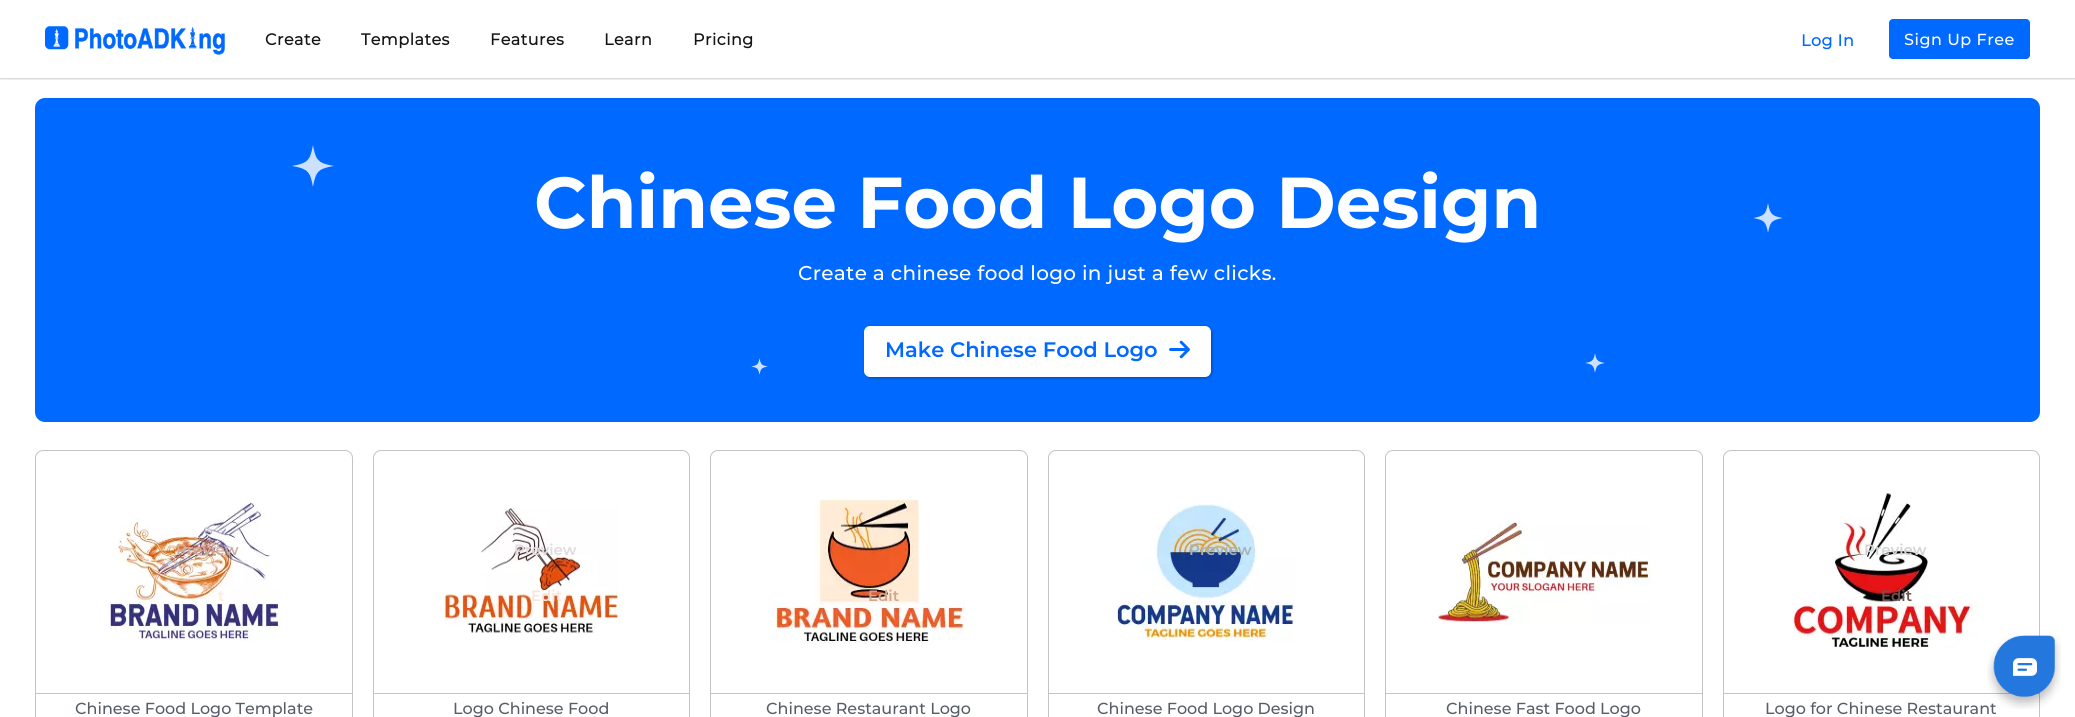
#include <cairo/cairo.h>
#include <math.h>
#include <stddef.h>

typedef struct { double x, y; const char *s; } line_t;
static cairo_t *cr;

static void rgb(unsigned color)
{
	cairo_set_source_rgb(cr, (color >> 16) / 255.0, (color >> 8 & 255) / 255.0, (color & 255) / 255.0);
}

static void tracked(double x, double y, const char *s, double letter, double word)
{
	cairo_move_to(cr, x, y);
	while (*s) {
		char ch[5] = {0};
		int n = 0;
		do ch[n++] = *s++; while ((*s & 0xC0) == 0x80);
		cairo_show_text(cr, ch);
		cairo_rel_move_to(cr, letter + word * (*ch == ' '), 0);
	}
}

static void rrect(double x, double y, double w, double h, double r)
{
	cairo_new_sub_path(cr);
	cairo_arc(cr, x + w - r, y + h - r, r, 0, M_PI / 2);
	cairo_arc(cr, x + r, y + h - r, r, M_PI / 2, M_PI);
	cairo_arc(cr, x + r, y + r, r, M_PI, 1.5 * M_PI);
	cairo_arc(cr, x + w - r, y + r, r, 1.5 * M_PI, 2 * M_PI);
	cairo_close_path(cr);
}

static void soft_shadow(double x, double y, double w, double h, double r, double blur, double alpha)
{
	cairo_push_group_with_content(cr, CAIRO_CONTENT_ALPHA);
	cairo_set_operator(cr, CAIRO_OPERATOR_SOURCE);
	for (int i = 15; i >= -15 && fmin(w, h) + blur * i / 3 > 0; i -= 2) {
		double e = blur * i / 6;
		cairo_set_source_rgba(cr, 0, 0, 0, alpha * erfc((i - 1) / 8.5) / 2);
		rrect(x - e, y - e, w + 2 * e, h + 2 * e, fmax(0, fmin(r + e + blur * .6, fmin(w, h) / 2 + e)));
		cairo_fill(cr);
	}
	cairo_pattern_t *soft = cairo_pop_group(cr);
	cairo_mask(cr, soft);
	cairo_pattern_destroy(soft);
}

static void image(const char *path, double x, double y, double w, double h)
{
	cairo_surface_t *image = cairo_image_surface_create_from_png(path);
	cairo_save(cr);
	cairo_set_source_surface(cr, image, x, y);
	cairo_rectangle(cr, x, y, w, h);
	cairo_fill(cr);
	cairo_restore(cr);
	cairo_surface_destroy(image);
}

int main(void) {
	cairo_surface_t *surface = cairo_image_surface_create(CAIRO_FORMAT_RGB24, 2075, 717);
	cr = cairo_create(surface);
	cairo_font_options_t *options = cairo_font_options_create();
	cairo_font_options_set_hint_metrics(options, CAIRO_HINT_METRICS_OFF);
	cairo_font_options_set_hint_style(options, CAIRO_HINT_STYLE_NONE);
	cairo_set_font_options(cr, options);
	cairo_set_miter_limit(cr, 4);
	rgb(0xffffff);
	cairo_paint(cr);
	rgb(0x0069ff);
	rrect(35, 98, 2005, 324, 10);
	cairo_fill(cr);
	image("img/1.png", 292, 145, 1491, 230);
	cairo_save(cr);
	cairo_rectangle(cr, 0, 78, 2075, 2);
	cairo_clip(cr);
	rgb(0x000000);
	soft_shadow(0, 1, 2075, 78, 0, 1, 0.2);
	cairo_restore(cr);
	image("img/2.png", 45, 26, 180, 29);
	rrect(1889, 19, 141, 40, 4);
	cairo_fill(cr);
	rgb(0x000000);
	soft_shadow(865, 327, 347, 51, 6, 1.5, 0.3);
	rgb(0xffffff);
	rrect(864, 326, 347, 51, 6);
	cairo_fill(cr);
	image("img/3.png", 1169, 340, 21, 19);
	rrect(35.5, 450.5, 317, 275, 7.5);
	rgb(0xc4c4c4);
	cairo_set_line_width(cr, 1);
	cairo_stroke(cr);
	image("img/4.png", 110, 500, 172, 141);
	cairo_rectangle(cr, 36, 693, 316, 1);
	cairo_fill(cr);
	rrect(373.5, 450.5, 316, 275, 7.5);
	cairo_stroke(cr);
	image("img/5.png", 443, 507, 177, 126);
	cairo_rectangle(cr, 374, 693, 315, 1);
	cairo_fill(cr);
	rrect(710.5, 450.5, 317, 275, 7.5);
	cairo_stroke(cr);
	image("img/6.png", 773, 499, 192, 145);
	cairo_rectangle(cr, 711, 693, 316, 1);
	cairo_fill(cr);
	rrect(1048.5, 450.5, 316, 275, 7.5);
	cairo_stroke(cr);
	image("img/7.png", 1117, 504, 178, 138);
	cairo_rectangle(cr, 1049, 693, 315, 1);
	cairo_fill(cr);
	rrect(1385.5, 450.5, 317, 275, 7.5);
	cairo_stroke(cr);
	image("img/8.png", 1431, 520, 221, 105);
	cairo_rectangle(cr, 1386, 693, 316, 1);
	cairo_fill(cr);
	rrect(1723.5, 450.5, 316, 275, 7.5);
	cairo_stroke(cr);
	image("img/9.png", 1792, 493, 186, 155);
	cairo_rectangle(cr, 1724, 693, 315, 1);
	cairo_fill(cr);
	cairo_select_font_face(cr, "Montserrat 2", CAIRO_FONT_SLANT_NORMAL, CAIRO_FONT_WEIGHT_BOLD);
	cairo_set_font_size(cr, 16);
	rgb(0x151515);
	{
		static const line_t items[] = {
			{265, 45, "Create"},
			{361, 45, "Templates"},
			{490, 45, "Features"},
			{604, 45, "Learn"},
			{693, 45, "Pricing"},
		};
		for (size_t i = 0; i < sizeof items / sizeof *items; i++) {
			tracked(items[i].x, items[i].y, items[i].s, 0.5, 0);
		}
	}
	rgb(0x0069ff);
	tracked(1801, 46, "Log In", 0.5, 0);
	cairo_select_font_face(cr, "Montserrat Medium", CAIRO_FONT_SLANT_NORMAL, CAIRO_FONT_WEIGHT_NORMAL);
	rgb(0xffffff);
	tracked(1904, 45, "Sign Up Free", 0.5, 0);
	cairo_select_font_face(cr, "Montserrat", CAIRO_FONT_SLANT_NORMAL, CAIRO_FONT_WEIGHT_BOLD);
	cairo_set_font_size(cr, 72);
	cairo_move_to(cr, 534, 228);
	cairo_show_text(cr, "Chinese Food Logo Design");
	cairo_select_font_face(cr, "Montserrat Medium", CAIRO_FONT_SLANT_NORMAL, CAIRO_FONT_WEIGHT_NORMAL);
	cairo_set_font_size(cr, 20);
	tracked(798, 280, "Create a chinese food logo in just a few clicks.", 0.3, 0);
	cairo_select_font_face(cr, "Montserrat SemiBold", CAIRO_FONT_SLANT_NORMAL, CAIRO_FONT_WEIGHT_NORMAL);
	cairo_set_font_size(cr, 21);
	rgb(0x0069ff);
	cairo_move_to(cr, 885, 357);
	cairo_show_text(cr, "Make Chinese Food Logo");
	cairo_set_font_size(cr, 15);
	rgb(0xceaca0);
	cairo_move_to(cr, 176, 555);
	cairo_show_text(cr, "Preview");
	rgb(0xf8ebe0);
	cairo_move_to(cr, 218, 601);
	cairo_show_text(cr, "t");
	cairo_select_font_face(cr, "Montserrat Medium", CAIRO_FONT_SLANT_NORMAL, CAIRO_FONT_WEIGHT_NORMAL);
	cairo_set_font_size(cr, 16);
	rgb(0x575d68);
	cairo_move_to(cr, 75, 714);
	cairo_show_text(cr, "Chinese Food Logo Template");
	cairo_select_font_face(cr, "Montserrat SemiBold", CAIRO_FONT_SLANT_NORMAL, CAIRO_FONT_WEIGHT_NORMAL);
	cairo_set_font_size(cr, 15);
	rgb(0xe0dbdc);
	cairo_move_to(cr, 514, 555);
	cairo_show_text(cr, "Preview");
	rgb(0xf9e5da);
	cairo_move_to(cr, 531, 601);
	cairo_show_text(cr, "Edit");
	cairo_select_font_face(cr, "Montserrat Medium", CAIRO_FONT_SLANT_NORMAL, CAIRO_FONT_WEIGHT_NORMAL);
	cairo_set_font_size(cr, 16);
	rgb(0x575d68);
	cairo_move_to(cr, 453, 714);
	cairo_show_text(cr, "Logo Chinese Food");
	cairo_select_font_face(cr, "Montserrat SemiBold", CAIRO_FONT_SLANT_NORMAL, CAIRO_FONT_WEIGHT_NORMAL);
	cairo_set_font_size(cr, 15);
	rgb(0xcda691);
	cairo_move_to(cr, 868, 601);
	cairo_show_text(cr, "Edit");
	cairo_select_font_face(cr, "Montserrat Medium", CAIRO_FONT_SLANT_NORMAL, CAIRO_FONT_WEIGHT_NORMAL);
	cairo_set_font_size(cr, 16);
	rgb(0x575d68);
	cairo_move_to(cr, 766, 714);
	cairo_show_text(cr, "Chinese Restaurant Logo");
	cairo_select_font_face(cr, "Montserrat SemiBold", CAIRO_FONT_SLANT_NORMAL, CAIRO_FONT_WEIGHT_NORMAL);
	cairo_set_font_size(cr, 15);
	rgb(0xa5b2b7);
	cairo_move_to(cr, 1189, 555);
	cairo_show_text(cr, "Preview");
	cairo_select_font_face(cr, "Montserrat Medium", CAIRO_FONT_SLANT_NORMAL, CAIRO_FONT_WEIGHT_NORMAL);
	cairo_set_font_size(cr, 16);
	rgb(0x575d68);
	cairo_move_to(cr, 1097, 714);
	cairo_show_text(cr, "Chinese Food Logo Design");
	cairo_move_to(cr, 1446, 714);
	cairo_show_text(cr, "Chinese Fast Food Logo");
	cairo_select_font_face(cr, "Montserrat SemiBold", CAIRO_FONT_SLANT_NORMAL, CAIRO_FONT_WEIGHT_NORMAL);
	cairo_set_font_size(cr, 15);
	rgb(0xd3d4d4);
	cairo_move_to(cr, 1864, 555);
	cairo_show_text(cr, "Preview");
	rgb(0x705252);
	cairo_move_to(cr, 1881, 601);
	cairo_show_text(cr, "Edit");
	cairo_select_font_face(cr, "Montserrat Medium", CAIRO_FONT_SLANT_NORMAL, CAIRO_FONT_WEIGHT_NORMAL);
	cairo_set_font_size(cr, 16);
	rgb(0x575d68);
	cairo_move_to(cr, 1765, 714);
	cairo_show_text(cr, "Logo for Chinese Restaurant");
	image("img/10.png", 1987, 635, 74, 74);
	image("img/11.png", 2013, 658, 24, 18);
	cairo_surface_write_to_png(surface, "page.png");
	cairo_font_options_destroy(options);
	cairo_destroy(cr);
	cairo_surface_destroy(surface);
	return 0;
}
